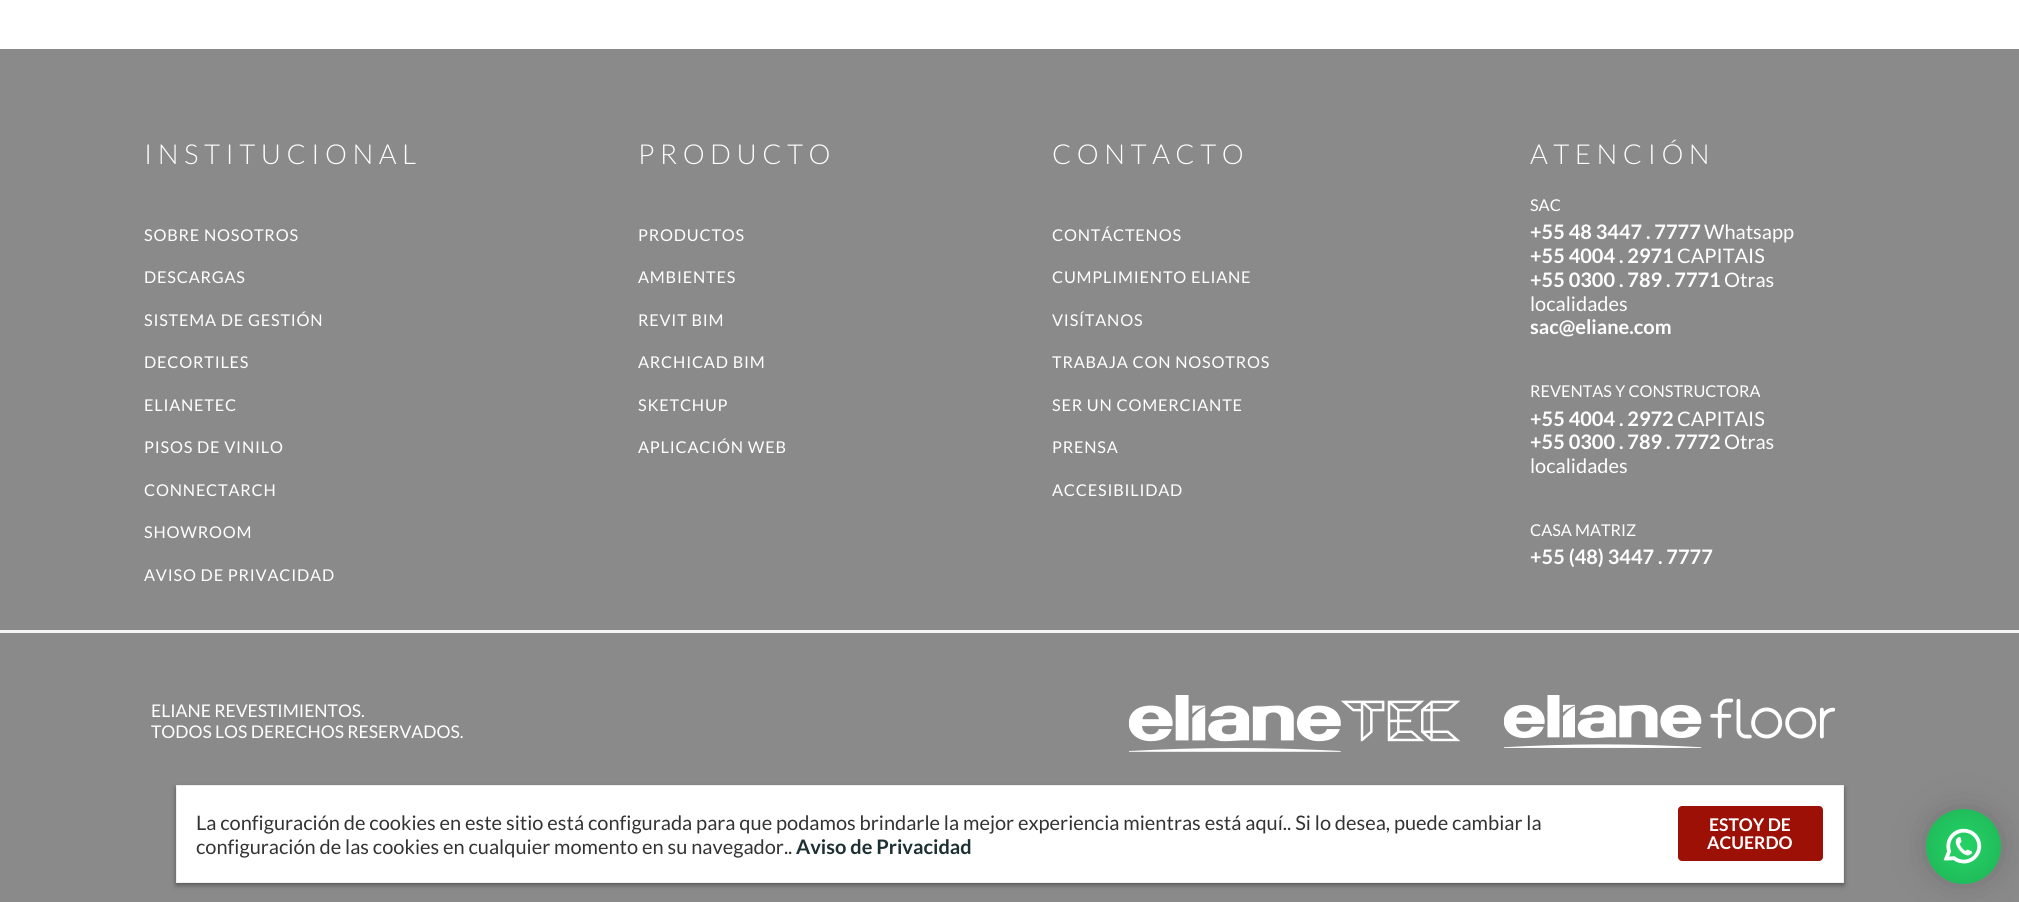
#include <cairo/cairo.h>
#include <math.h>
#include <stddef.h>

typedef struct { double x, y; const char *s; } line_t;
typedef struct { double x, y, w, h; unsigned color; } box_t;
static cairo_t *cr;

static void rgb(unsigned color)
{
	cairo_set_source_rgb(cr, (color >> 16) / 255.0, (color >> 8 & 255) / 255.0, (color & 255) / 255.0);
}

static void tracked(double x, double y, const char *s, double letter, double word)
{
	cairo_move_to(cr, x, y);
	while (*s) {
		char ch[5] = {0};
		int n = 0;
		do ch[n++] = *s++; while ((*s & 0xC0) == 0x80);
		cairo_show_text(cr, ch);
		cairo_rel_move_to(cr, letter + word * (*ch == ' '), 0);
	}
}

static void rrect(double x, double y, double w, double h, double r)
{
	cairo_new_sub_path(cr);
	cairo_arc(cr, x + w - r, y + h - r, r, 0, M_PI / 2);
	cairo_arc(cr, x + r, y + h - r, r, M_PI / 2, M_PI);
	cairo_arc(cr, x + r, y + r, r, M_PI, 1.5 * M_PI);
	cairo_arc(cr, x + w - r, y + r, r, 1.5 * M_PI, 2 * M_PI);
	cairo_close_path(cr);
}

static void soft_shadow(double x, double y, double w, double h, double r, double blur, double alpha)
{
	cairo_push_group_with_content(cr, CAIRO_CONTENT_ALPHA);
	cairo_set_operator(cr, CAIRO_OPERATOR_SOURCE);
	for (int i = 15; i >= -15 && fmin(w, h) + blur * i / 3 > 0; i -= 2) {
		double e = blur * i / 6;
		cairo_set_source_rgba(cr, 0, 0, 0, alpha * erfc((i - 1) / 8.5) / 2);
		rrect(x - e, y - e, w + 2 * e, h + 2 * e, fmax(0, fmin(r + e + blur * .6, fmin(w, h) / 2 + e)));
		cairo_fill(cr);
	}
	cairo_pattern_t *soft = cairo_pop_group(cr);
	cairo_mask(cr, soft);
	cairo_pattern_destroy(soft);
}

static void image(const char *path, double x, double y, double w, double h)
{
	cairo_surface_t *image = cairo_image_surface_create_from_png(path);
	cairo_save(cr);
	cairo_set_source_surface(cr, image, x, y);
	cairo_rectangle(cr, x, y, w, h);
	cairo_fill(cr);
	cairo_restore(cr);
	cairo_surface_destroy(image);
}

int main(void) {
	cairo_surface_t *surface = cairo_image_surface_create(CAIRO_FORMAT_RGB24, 2019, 902);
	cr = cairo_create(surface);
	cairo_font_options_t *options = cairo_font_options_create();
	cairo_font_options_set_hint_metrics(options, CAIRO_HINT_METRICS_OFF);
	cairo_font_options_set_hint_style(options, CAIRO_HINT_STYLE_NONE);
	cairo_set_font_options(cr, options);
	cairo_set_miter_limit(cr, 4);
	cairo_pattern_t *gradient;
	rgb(0xffffff);
	cairo_paint(cr);
	{
		static const box_t items[] = {
			{0, 49, 2019, 581, 0x8a8a8a},
			{0, 630, 2019, 3, 0xf4f4f4},
			{0, 633, 2019, 269, 0x8a8a8a},
		};
		for (size_t i = 0; i < sizeof items / sizeof *items; i++) {
			rgb(items[i].color);
			cairo_rectangle(cr, items[i].x, items[i].y, items[i].w, items[i].h);
			cairo_fill(cr);
		}
	}
	image("img/1.png", 1129, 695, 331, 57);
	image("img/2.png", 1504, 695, 331, 53);
	rgb(0x000000);
	soft_shadow(176, 788, 1668, 97, 0, 2.5, 0.4);
	rgb(0xffffff);
	cairo_rectangle(cr, 176.5, 785.5, 1667, 97);
	cairo_fill_preserve(cr);
	rgb(0xeeeeee);
	cairo_set_line_width(cr, 1);
	cairo_stroke(cr);
	rgb(0x9c1006);
	rrect(1678, 806, 145, 55, 4);
	cairo_fill(cr);
	rgb(0x000000);
	soft_shadow(1930, 813, 68, 67, 33.5, 18, 0.2);
	gradient = cairo_pattern_create_radial(1964, 846, 0, 1964, 846, 53);
	cairo_pattern_add_color_stop_rgba(gradient, 0, 0.145, 0.827, 0.4, 1);
	cairo_pattern_add_color_stop_rgba(gradient, 1, 0.118, 0.706, 0.337, 1);
	cairo_set_source(cr, gradient);
	cairo_pattern_destroy(gradient);
	cairo_arc(cr, 1963.5, 846.5, 37.5, 0, 2 * M_PI);
	cairo_fill(cr);
	image("img/3.png", 1943, 828, 39, 36);
	cairo_select_font_face(cr, "Lato Light", CAIRO_FONT_SLANT_NORMAL, CAIRO_FONT_WEIGHT_NORMAL);
	cairo_set_font_size(cr, 27.5);
	rgb(0xffffff);
	tracked(144, 164, "INSTITUCIONAL", 5.5, 0);
	cairo_select_font_face(cr, "Lato", CAIRO_FONT_SLANT_NORMAL, CAIRO_FONT_WEIGHT_NORMAL);
	cairo_set_font_size(cr, 16.25);
	{
		static const line_t items[] = {
			{144, 241, "SOBRE NOSOTROS"},
			{144, 283, "DESCARGAS"},
			{144, 326, "SISTEMA DE GESTIÓN"},
			{144, 368, "DECORTILES"},
			{144, 411, "ELIANETEC"},
			{144, 453, "PISOS DE VINILO"},
			{144, 496, "CONNECTARCH"},
			{144, 538, "SHOWROOM"},
			{144, 581, "AVISO DE PRIVACIDAD"},
		};
		for (size_t i = 0; i < sizeof items / sizeof *items; i++) {
			tracked(items[i].x, items[i].y, items[i].s, 0.8, 0);
		}
	}
	cairo_select_font_face(cr, "Lato Light", CAIRO_FONT_SLANT_NORMAL, CAIRO_FONT_WEIGHT_NORMAL);
	cairo_set_font_size(cr, 27.5);
	tracked(638, 164, "PRODUCTO", 5.5, 0);
	cairo_select_font_face(cr, "Lato", CAIRO_FONT_SLANT_NORMAL, CAIRO_FONT_WEIGHT_NORMAL);
	cairo_set_font_size(cr, 16.25);
	{
		static const line_t items[] = {
			{638, 241, "PRODUCTOS"},
			{638, 283, "AMBIENTES"},
			{638, 326, "REVIT BIM"},
			{638, 368, "ARCHICAD BIM"},
			{638, 411, "SKETCHUP"},
			{638, 453, "APLICACIÓN WEB"},
		};
		for (size_t i = 0; i < sizeof items / sizeof *items; i++) {
			tracked(items[i].x, items[i].y, items[i].s, 0.8, 0);
		}
	}
	cairo_select_font_face(cr, "Lato Light", CAIRO_FONT_SLANT_NORMAL, CAIRO_FONT_WEIGHT_NORMAL);
	cairo_set_font_size(cr, 27.5);
	tracked(1052, 164, "CONTACTO", 5.5, 0);
	cairo_select_font_face(cr, "Lato", CAIRO_FONT_SLANT_NORMAL, CAIRO_FONT_WEIGHT_NORMAL);
	cairo_set_font_size(cr, 16.25);
	{
		static const line_t items[] = {
			{1052, 241, "CONTÁCTENOS"},
			{1052, 283, "CUMPLIMIENTO ELIANE"},
			{1052, 326, "VISÍTANOS"},
			{1052, 368, "TRABAJA CON NOSOTROS"},
			{1052, 411, "SER UN COMERCIANTE"},
			{1052, 453, "PRENSA"},
			{1052, 496, "ACCESIBILIDAD"},
		};
		for (size_t i = 0; i < sizeof items / sizeof *items; i++) {
			tracked(items[i].x, items[i].y, items[i].s, 0.8, 0);
		}
	}
	cairo_select_font_face(cr, "Lato Light", CAIRO_FONT_SLANT_NORMAL, CAIRO_FONT_WEIGHT_NORMAL);
	cairo_set_font_size(cr, 27.5);
	tracked(1530, 164, "ATENCIÓN", 5.5, 0);
	cairo_select_font_face(cr, "Lato", CAIRO_FONT_SLANT_NORMAL, CAIRO_FONT_WEIGHT_NORMAL);
	cairo_set_font_size(cr, 16.25);
	cairo_move_to(cr, 1530, 211);
	cairo_show_text(cr, "SAC");
	cairo_select_font_face(cr, "Lato", CAIRO_FONT_SLANT_NORMAL, CAIRO_FONT_WEIGHT_BOLD);
	cairo_set_font_size(cr, 20);
	cairo_move_to(cr, 1530, 239);
	cairo_show_text(cr, "+55 48 3447 . 7777");
	cairo_select_font_face(cr, "Lato", CAIRO_FONT_SLANT_NORMAL, CAIRO_FONT_WEIGHT_NORMAL);
	cairo_move_to(cr, 1704, 239);
	cairo_show_text(cr, "Whatsapp");
	cairo_select_font_face(cr, "Lato", CAIRO_FONT_SLANT_NORMAL, CAIRO_FONT_WEIGHT_BOLD);
	cairo_move_to(cr, 1530, 263);
	cairo_show_text(cr, "+55 4004 . 2971");
	cairo_select_font_face(cr, "Lato", CAIRO_FONT_SLANT_NORMAL, CAIRO_FONT_WEIGHT_NORMAL);
	cairo_move_to(cr, 1677, 263);
	cairo_show_text(cr, "CAPITAIS");
	cairo_select_font_face(cr, "Lato", CAIRO_FONT_SLANT_NORMAL, CAIRO_FONT_WEIGHT_BOLD);
	cairo_move_to(cr, 1530, 287);
	cairo_show_text(cr, "+55 0300 . 789 . 7771");
	cairo_select_font_face(cr, "Lato", CAIRO_FONT_SLANT_NORMAL, CAIRO_FONT_WEIGHT_NORMAL);
	cairo_move_to(cr, 1724, 287);
	cairo_show_text(cr, "Otras");
	cairo_move_to(cr, 1530, 311);
	cairo_show_text(cr, "localidades");
	cairo_select_font_face(cr, "Lato", CAIRO_FONT_SLANT_NORMAL, CAIRO_FONT_WEIGHT_BOLD);
	cairo_move_to(cr, 1530, 334);
	cairo_show_text(cr, "sac@eliane.com");
	cairo_select_font_face(cr, "Lato", CAIRO_FONT_SLANT_NORMAL, CAIRO_FONT_WEIGHT_NORMAL);
	cairo_set_font_size(cr, 16.25);
	cairo_move_to(cr, 1530, 397);
	cairo_show_text(cr, "REVENTAS Y CONSTRUCTORA");
	cairo_select_font_face(cr, "Lato", CAIRO_FONT_SLANT_NORMAL, CAIRO_FONT_WEIGHT_BOLD);
	cairo_set_font_size(cr, 20);
	cairo_move_to(cr, 1530, 426);
	cairo_show_text(cr, "+55 4004 . 2972");
	cairo_select_font_face(cr, "Lato", CAIRO_FONT_SLANT_NORMAL, CAIRO_FONT_WEIGHT_NORMAL);
	cairo_move_to(cr, 1677, 426);
	cairo_show_text(cr, "CAPITAIS");
	cairo_select_font_face(cr, "Lato", CAIRO_FONT_SLANT_NORMAL, CAIRO_FONT_WEIGHT_BOLD);
	cairo_move_to(cr, 1530, 449);
	cairo_show_text(cr, "+55 0300 . 789 . 7772");
	cairo_select_font_face(cr, "Lato", CAIRO_FONT_SLANT_NORMAL, CAIRO_FONT_WEIGHT_NORMAL);
	cairo_move_to(cr, 1724, 449);
	cairo_show_text(cr, "Otras");
	cairo_move_to(cr, 1530, 473);
	cairo_show_text(cr, "localidades");
	cairo_set_font_size(cr, 16.25);
	cairo_move_to(cr, 1530, 536);
	cairo_show_text(cr, "CASA MATRIZ");
	cairo_select_font_face(cr, "Lato", CAIRO_FONT_SLANT_NORMAL, CAIRO_FONT_WEIGHT_BOLD);
	cairo_set_font_size(cr, 20);
	cairo_move_to(cr, 1530, 564);
	cairo_show_text(cr, "+55 (48) 3447 . 7777");
	cairo_select_font_face(cr, "Lato", CAIRO_FONT_SLANT_NORMAL, CAIRO_FONT_WEIGHT_NORMAL);
	cairo_set_font_size(cr, 17.5);
	cairo_move_to(cr, 151, 717);
	cairo_show_text(cr, "ELIANE REVESTIMIENTOS.");
	cairo_move_to(cr, 151, 738);
	cairo_show_text(cr, "TODOS LOS DERECHOS RESERVADOS.");
	cairo_set_font_size(cr, 20);
	rgb(0x333333);
	cairo_move_to(cr, 196, 830);
	cairo_show_text(cr, "La configuración de cookies en este sitio está configurada para que podamos brindarle la mejor experiencia mientras está aquí.. Si lo desea, puede cambiar la");
	cairo_move_to(cr, 196, 854);
	cairo_show_text(cr, "configuración de las cookies en cualquier momento en su navegador..");
	cairo_select_font_face(cr, "Lato", CAIRO_FONT_SLANT_NORMAL, CAIRO_FONT_WEIGHT_BOLD);
	rgb(0x1c2f33);
	cairo_move_to(cr, 796, 854);
	cairo_show_text(cr, "Aviso de Privacidad");
	cairo_set_font_size(cr, 17.5);
	rgb(0xffffff);
	cairo_move_to(cr, 1709, 831);
	cairo_show_text(cr, "ESTOY DE");
	cairo_move_to(cr, 1707, 849);
	cairo_show_text(cr, "ACUERDO");
	cairo_surface_write_to_png(surface, "page.png");
	cairo_font_options_destroy(options);
	cairo_destroy(cr);
	cairo_surface_destroy(surface);
	return 0;
}
